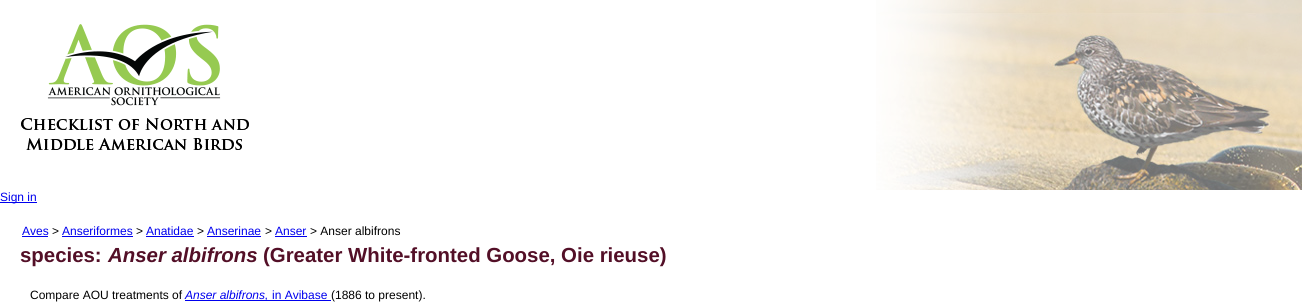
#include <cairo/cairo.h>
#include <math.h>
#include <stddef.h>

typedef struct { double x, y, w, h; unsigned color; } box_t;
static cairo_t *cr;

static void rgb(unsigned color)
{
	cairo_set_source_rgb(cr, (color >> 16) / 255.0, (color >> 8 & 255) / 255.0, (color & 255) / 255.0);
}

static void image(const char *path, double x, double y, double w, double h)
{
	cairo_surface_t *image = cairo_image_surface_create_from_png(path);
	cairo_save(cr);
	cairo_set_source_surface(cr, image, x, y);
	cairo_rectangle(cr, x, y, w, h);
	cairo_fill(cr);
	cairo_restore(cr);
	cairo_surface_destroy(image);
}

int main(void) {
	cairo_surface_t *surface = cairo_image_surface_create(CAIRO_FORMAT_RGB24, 1312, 307);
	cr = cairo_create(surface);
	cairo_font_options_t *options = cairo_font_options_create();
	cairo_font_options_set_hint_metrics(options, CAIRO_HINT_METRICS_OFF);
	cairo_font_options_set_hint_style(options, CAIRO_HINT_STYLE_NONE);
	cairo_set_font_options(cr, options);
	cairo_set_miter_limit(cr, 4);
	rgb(0xffffff);
	cairo_paint(cr);
	image("img/1.png", 21, 24, 228, 126);
	image("img/2.png", 876, 0, 426, 190);
	{
		static const box_t items[] = {
			{0, 202, 37, 1, 0x0000ee},
			{22, 236, 26, 1, 0x0000ee},
			{62, 236, 71, 1, 0x0000ee},
			{146, 236, 48, 1, 0x0000ee},
			{207, 236, 54, 1, 0x0000ee},
			{275, 236, 32, 1, 0x0000ee},
			{185, 300, 146, 1, 0x0000ee},
		};
		for (size_t i = 0; i < sizeof items / sizeof *items; i++) {
			rgb(items[i].color);
			cairo_rectangle(cr, items[i].x, items[i].y, items[i].w, items[i].h);
			cairo_fill(cr);
		}
	}
	cairo_select_font_face(cr, "Liberation Sans", CAIRO_FONT_SLANT_NORMAL, CAIRO_FONT_WEIGHT_NORMAL);
	cairo_set_font_size(cr, 12);
	cairo_move_to(cr, 0, 201);
	cairo_show_text(cr, "Sign in");
	cairo_move_to(cr, 22, 235);
	cairo_show_text(cr, "Aves");
	rgb(0x000000);
	cairo_move_to(cr, 52, 235);
	cairo_show_text(cr, ">");
	rgb(0x0000ee);
	cairo_move_to(cr, 62, 235);
	cairo_show_text(cr, "Anseriformes");
	rgb(0x000000);
	cairo_move_to(cr, 136, 235);
	cairo_show_text(cr, ">");
	rgb(0x0000ee);
	cairo_move_to(cr, 146, 235);
	cairo_show_text(cr, "Anatidae");
	rgb(0x000000);
	cairo_move_to(cr, 197, 235);
	cairo_show_text(cr, ">");
	rgb(0x0000ee);
	cairo_move_to(cr, 207, 235);
	cairo_show_text(cr, "Anserinae");
	rgb(0x000000);
	cairo_move_to(cr, 265, 235);
	cairo_show_text(cr, ">");
	rgb(0x0000ee);
	cairo_move_to(cr, 275, 235);
	cairo_show_text(cr, "Anser");
	rgb(0x000000);
	cairo_move_to(cr, 310, 235);
	cairo_show_text(cr, "> Anser albifrons");
	cairo_select_font_face(cr, "Liberation Sans", CAIRO_FONT_SLANT_NORMAL, CAIRO_FONT_WEIGHT_BOLD);
	cairo_set_font_size(cr, 20.4);
	rgb(0x530f27);
	cairo_move_to(cr, 20, 262);
	cairo_show_text(cr, "species:");
	cairo_select_font_face(cr, "Liberation Sans", CAIRO_FONT_SLANT_ITALIC, CAIRO_FONT_WEIGHT_BOLD);
	cairo_move_to(cr, 108, 262);
	cairo_show_text(cr, "Anser albifrons");
	cairo_select_font_face(cr, "Liberation Sans", CAIRO_FONT_SLANT_NORMAL, CAIRO_FONT_WEIGHT_BOLD);
	cairo_move_to(cr, 263, 262);
	cairo_show_text(cr, "(Greater White-fronted Goose, Oie rieuse)");
	cairo_select_font_face(cr, "Liberation Sans", CAIRO_FONT_SLANT_NORMAL, CAIRO_FONT_WEIGHT_NORMAL);
	cairo_set_font_size(cr, 12);
	rgb(0x000000);
	cairo_move_to(cr, 30, 299);
	cairo_show_text(cr, "Compare AOU treatments of");
	cairo_select_font_face(cr, "Liberation Sans", CAIRO_FONT_SLANT_ITALIC, CAIRO_FONT_WEIGHT_NORMAL);
	rgb(0x0000ee);
	cairo_move_to(cr, 185, 299);
	cairo_show_text(cr, "Anser albifrons,");
	cairo_select_font_face(cr, "Liberation Sans", CAIRO_FONT_SLANT_NORMAL, CAIRO_FONT_WEIGHT_NORMAL);
	cairo_move_to(cr, 272, 299);
	cairo_show_text(cr, "in Avibase");
	rgb(0x000000);
	cairo_move_to(cr, 331, 299);
	cairo_show_text(cr, "(1886 to present).");
	cairo_surface_write_to_png(surface, "page.png");
	cairo_font_options_destroy(options);
	cairo_destroy(cr);
	cairo_surface_destroy(surface);
	return 0;
}
